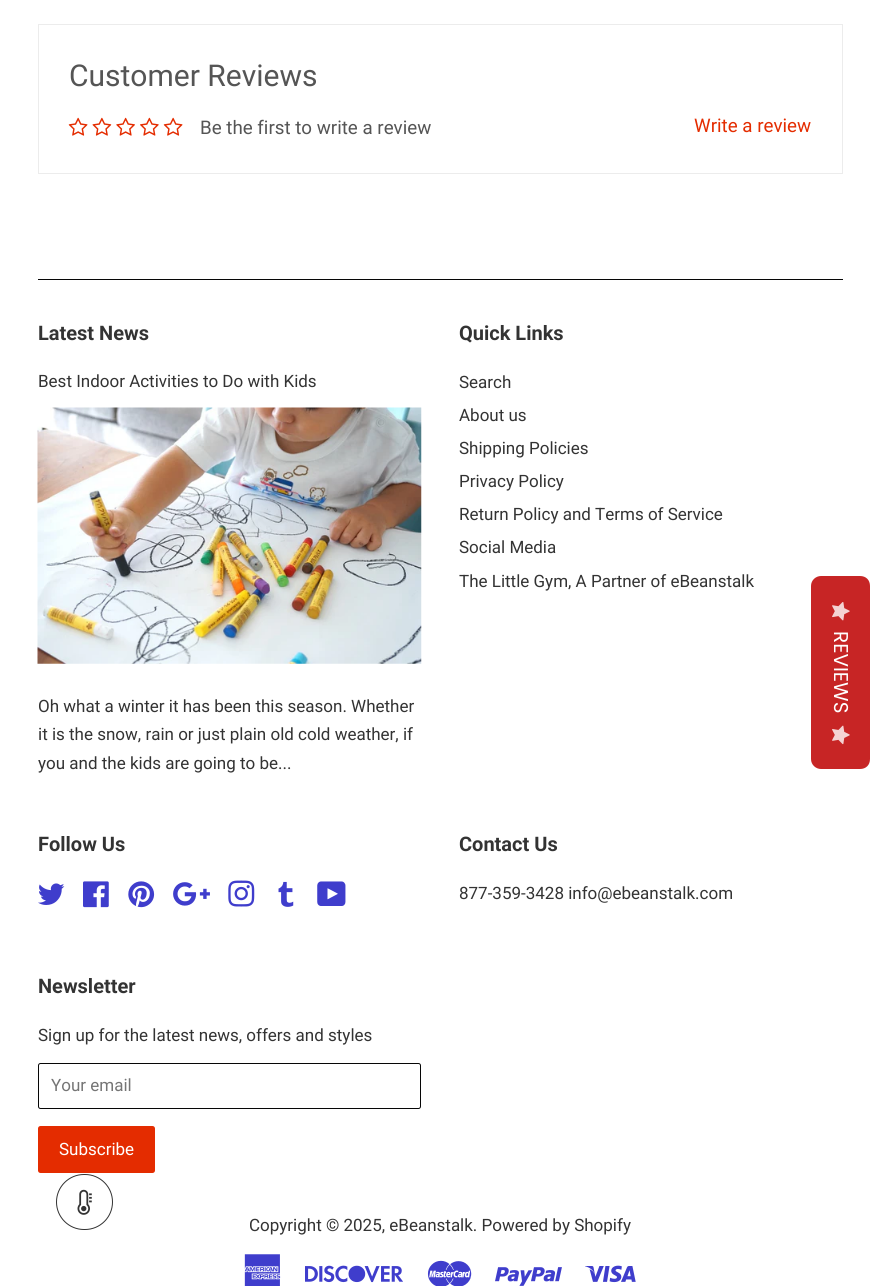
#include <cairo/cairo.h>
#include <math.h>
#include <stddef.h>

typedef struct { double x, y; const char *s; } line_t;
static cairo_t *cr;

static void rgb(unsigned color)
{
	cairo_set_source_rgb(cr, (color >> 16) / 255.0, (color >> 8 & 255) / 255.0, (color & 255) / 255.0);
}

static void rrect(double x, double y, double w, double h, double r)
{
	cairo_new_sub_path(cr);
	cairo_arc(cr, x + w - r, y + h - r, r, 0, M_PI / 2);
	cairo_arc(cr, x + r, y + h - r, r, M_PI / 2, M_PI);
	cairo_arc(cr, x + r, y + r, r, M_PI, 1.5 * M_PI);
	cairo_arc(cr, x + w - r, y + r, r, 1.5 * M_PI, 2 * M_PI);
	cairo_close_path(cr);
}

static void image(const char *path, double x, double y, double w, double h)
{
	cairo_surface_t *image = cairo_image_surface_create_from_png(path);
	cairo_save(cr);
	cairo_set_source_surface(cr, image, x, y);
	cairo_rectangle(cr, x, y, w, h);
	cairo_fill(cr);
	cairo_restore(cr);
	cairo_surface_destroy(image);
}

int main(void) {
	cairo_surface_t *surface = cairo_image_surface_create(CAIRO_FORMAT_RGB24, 880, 1286);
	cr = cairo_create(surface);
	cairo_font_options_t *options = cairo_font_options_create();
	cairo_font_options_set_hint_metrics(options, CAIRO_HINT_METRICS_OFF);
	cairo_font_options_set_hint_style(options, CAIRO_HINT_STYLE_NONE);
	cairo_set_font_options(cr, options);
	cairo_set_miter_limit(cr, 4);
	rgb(0xffffff);
	cairo_paint(cr);
	cairo_rectangle(cr, 38.5, 24.5, 804, 149);
	rgb(0xececec);
	cairo_set_line_width(cr, 1);
	cairo_stroke(cr);
	image("img/1.png", 68, 117, 20, 19);
	image("img/2.png", 92, 117, 20, 19);
	image("img/3.png", 116, 117, 19, 19);
	image("img/4.png", 140, 117, 19, 19);
	image("img/1.png", 163, 117, 20, 19);
	rgb(0x060606);
	cairo_rectangle(cr, 38, 279, 805, 1);
	cairo_fill(cr);
	image("img/5.png", 37, 407, 385, 257);
	image("img/6.png", 38, 883, 27, 22);
	image("img/7.png", 83, 881, 26, 27);
	image("img/8.png", 128, 881, 27, 27);
	image("img/9.png", 173, 882, 37, 24);
	image("img/10.png", 228, 880, 27, 27);
	image("img/11.png", 278, 881, 16, 26);
	image("img/12.png", 317, 881, 29, 25);
	rrect(38.5, 1063.5, 382, 45, 2);
	cairo_stroke(cr);
	rgb(0xe42c00);
	rrect(38, 1126, 117, 47, 2.5);
	cairo_fill(cr);
	image("img/13.png", 244, 1254, 37, 32);
	image("img/14.png", 305, 1265, 98, 18);
	image("img/15.png", 427, 1260, 45, 26);
	image("img/16.png", 495, 1267, 67, 19);
	image("img/17.png", 585, 1265, 51, 18);
	rgb(0xc72525);
	cairo_new_path(cr);
	cairo_move_to(cr, 870, 586);
	cairo_line_to(cr, 870, 759);
	cairo_curve_to(cr, 870, 765, 866, 769, 860, 769);
	cairo_line_to(cr, 821, 769);
	cairo_curve_to(cr, 816, 769, 811, 765, 811, 759);
	cairo_line_to(cr, 811, 586);
	cairo_curve_to(cr, 811, 580, 816, 576, 821, 576);
	cairo_line_to(cr, 860, 576);
	cairo_curve_to(cr, 866, 576, 870, 580, 870, 586);
	cairo_close_path(cr);
	cairo_fill(cr);
	image("img/18.png", 832, 602, 18, 19);
	image("img/19.png", 832, 725, 18, 20);
	rrect(56.5, 1174.5, 56, 55, 27.5);
	rgb(0x333333);
	cairo_stroke(cr);
	image("img/20.png", 77, 1189, 15, 26);
	cairo_select_font_face(cr, "Roboto", CAIRO_FONT_SLANT_NORMAL, CAIRO_FONT_WEIGHT_NORMAL);
	cairo_set_font_size(cr, 30);
	rgb(0x555555);
	cairo_move_to(cr, 69, 86);
	cairo_show_text(cr, "Customer Reviews");
	cairo_set_font_size(cr, 18.75);
	cairo_move_to(cr, 200, 134);
	cairo_show_text(cr, "Be the first to write a review");
	rgb(0xe42c00);
	cairo_move_to(cr, 694, 132);
	cairo_show_text(cr, "Write a review");
	cairo_select_font_face(cr, "Roboto", CAIRO_FONT_SLANT_NORMAL, CAIRO_FONT_WEIGHT_BOLD);
	cairo_set_font_size(cr, 20);
	rgb(0x333333);
	cairo_move_to(cr, 38, 340);
	cairo_show_text(cr, "Latest News");
	cairo_select_font_face(cr, "Roboto", CAIRO_FONT_SLANT_NORMAL, CAIRO_FONT_WEIGHT_NORMAL);
	cairo_set_font_size(cr, 17);
	{
		static const line_t items[] = {
			{38, 387, "Best Indoor Activities to Do with Kids"},
			{38, 712, "Oh what a winter it has been this season. Whether"},
			{38, 740, "it is the snow, rain or just plain old cold weather, if"},
			{38, 769, "you and the kids are going to be..."},
		};
		for (size_t i = 0; i < sizeof items / sizeof *items; i++) {
			cairo_move_to(cr, items[i].x, items[i].y);
			cairo_show_text(cr, items[i].s);
		}
	}
	cairo_select_font_face(cr, "Roboto", CAIRO_FONT_SLANT_NORMAL, CAIRO_FONT_WEIGHT_BOLD);
	cairo_set_font_size(cr, 20);
	cairo_move_to(cr, 459, 340);
	cairo_show_text(cr, "Quick Links");
	cairo_select_font_face(cr, "Roboto", CAIRO_FONT_SLANT_NORMAL, CAIRO_FONT_WEIGHT_NORMAL);
	cairo_set_font_size(cr, 17);
	{
		static const line_t items[] = {
			{459, 388, "Search"},
			{459, 421, "About us"},
			{459, 454, "Shipping Policies"},
			{459, 487, "Privacy Policy"},
			{459, 520, "Return Policy and Terms of Service"},
			{459, 553, "Social Media"},
			{459, 587, "The Little Gym, A Partner of eBeanstalk"},
		};
		for (size_t i = 0; i < sizeof items / sizeof *items; i++) {
			cairo_move_to(cr, items[i].x, items[i].y);
			cairo_show_text(cr, items[i].s);
		}
	}
	cairo_select_font_face(cr, "Roboto", CAIRO_FONT_SLANT_NORMAL, CAIRO_FONT_WEIGHT_BOLD);
	cairo_set_font_size(cr, 20);
	cairo_move_to(cr, 38, 851);
	cairo_show_text(cr, "Follow Us");
	cairo_move_to(cr, 459, 851);
	cairo_show_text(cr, "Contact Us");
	cairo_select_font_face(cr, "Roboto", CAIRO_FONT_SLANT_NORMAL, CAIRO_FONT_WEIGHT_NORMAL);
	cairo_set_font_size(cr, 17);
	cairo_move_to(cr, 459, 899);
	cairo_show_text(cr, "877-359-3428 info@ebeanstalk.com");
	cairo_select_font_face(cr, "Roboto", CAIRO_FONT_SLANT_NORMAL, CAIRO_FONT_WEIGHT_BOLD);
	cairo_set_font_size(cr, 20);
	cairo_move_to(cr, 38, 993);
	cairo_show_text(cr, "Newsletter");
	cairo_select_font_face(cr, "Roboto", CAIRO_FONT_SLANT_NORMAL, CAIRO_FONT_WEIGHT_NORMAL);
	cairo_set_font_size(cr, 17);
	cairo_move_to(cr, 38, 1041);
	cairo_show_text(cr, "Sign up for the latest news, offers and styles");
	rgb(0x757575);
	cairo_move_to(cr, 51, 1091);
	cairo_show_text(cr, "Your email");
	rgb(0xffffff);
	cairo_move_to(cr, 59, 1155);
	cairo_show_text(cr, "Subscribe");
	rgb(0x333333);
	cairo_move_to(cr, 249, 1231);
	cairo_show_text(cr, "Copyright © 2025, eBeanstalk. Powered by Shopify");
	cairo_select_font_face(cr, "Poppins", CAIRO_FONT_SLANT_NORMAL, CAIRO_FONT_WEIGHT_NORMAL);
	cairo_set_font_size(cr, 20);
	rgb(0xffffff);
	cairo_save(cr);
	cairo_translate(cr, 834, 631);
	cairo_rotate(cr, 90 * M_PI / 180);
	cairo_move_to(cr, 0, 0);
	cairo_show_text(cr, "REVIEWS");
	cairo_restore(cr);
	cairo_surface_write_to_png(surface, "page.png");
	cairo_font_options_destroy(options);
	cairo_destroy(cr);
	cairo_surface_destroy(surface);
	return 0;
}
